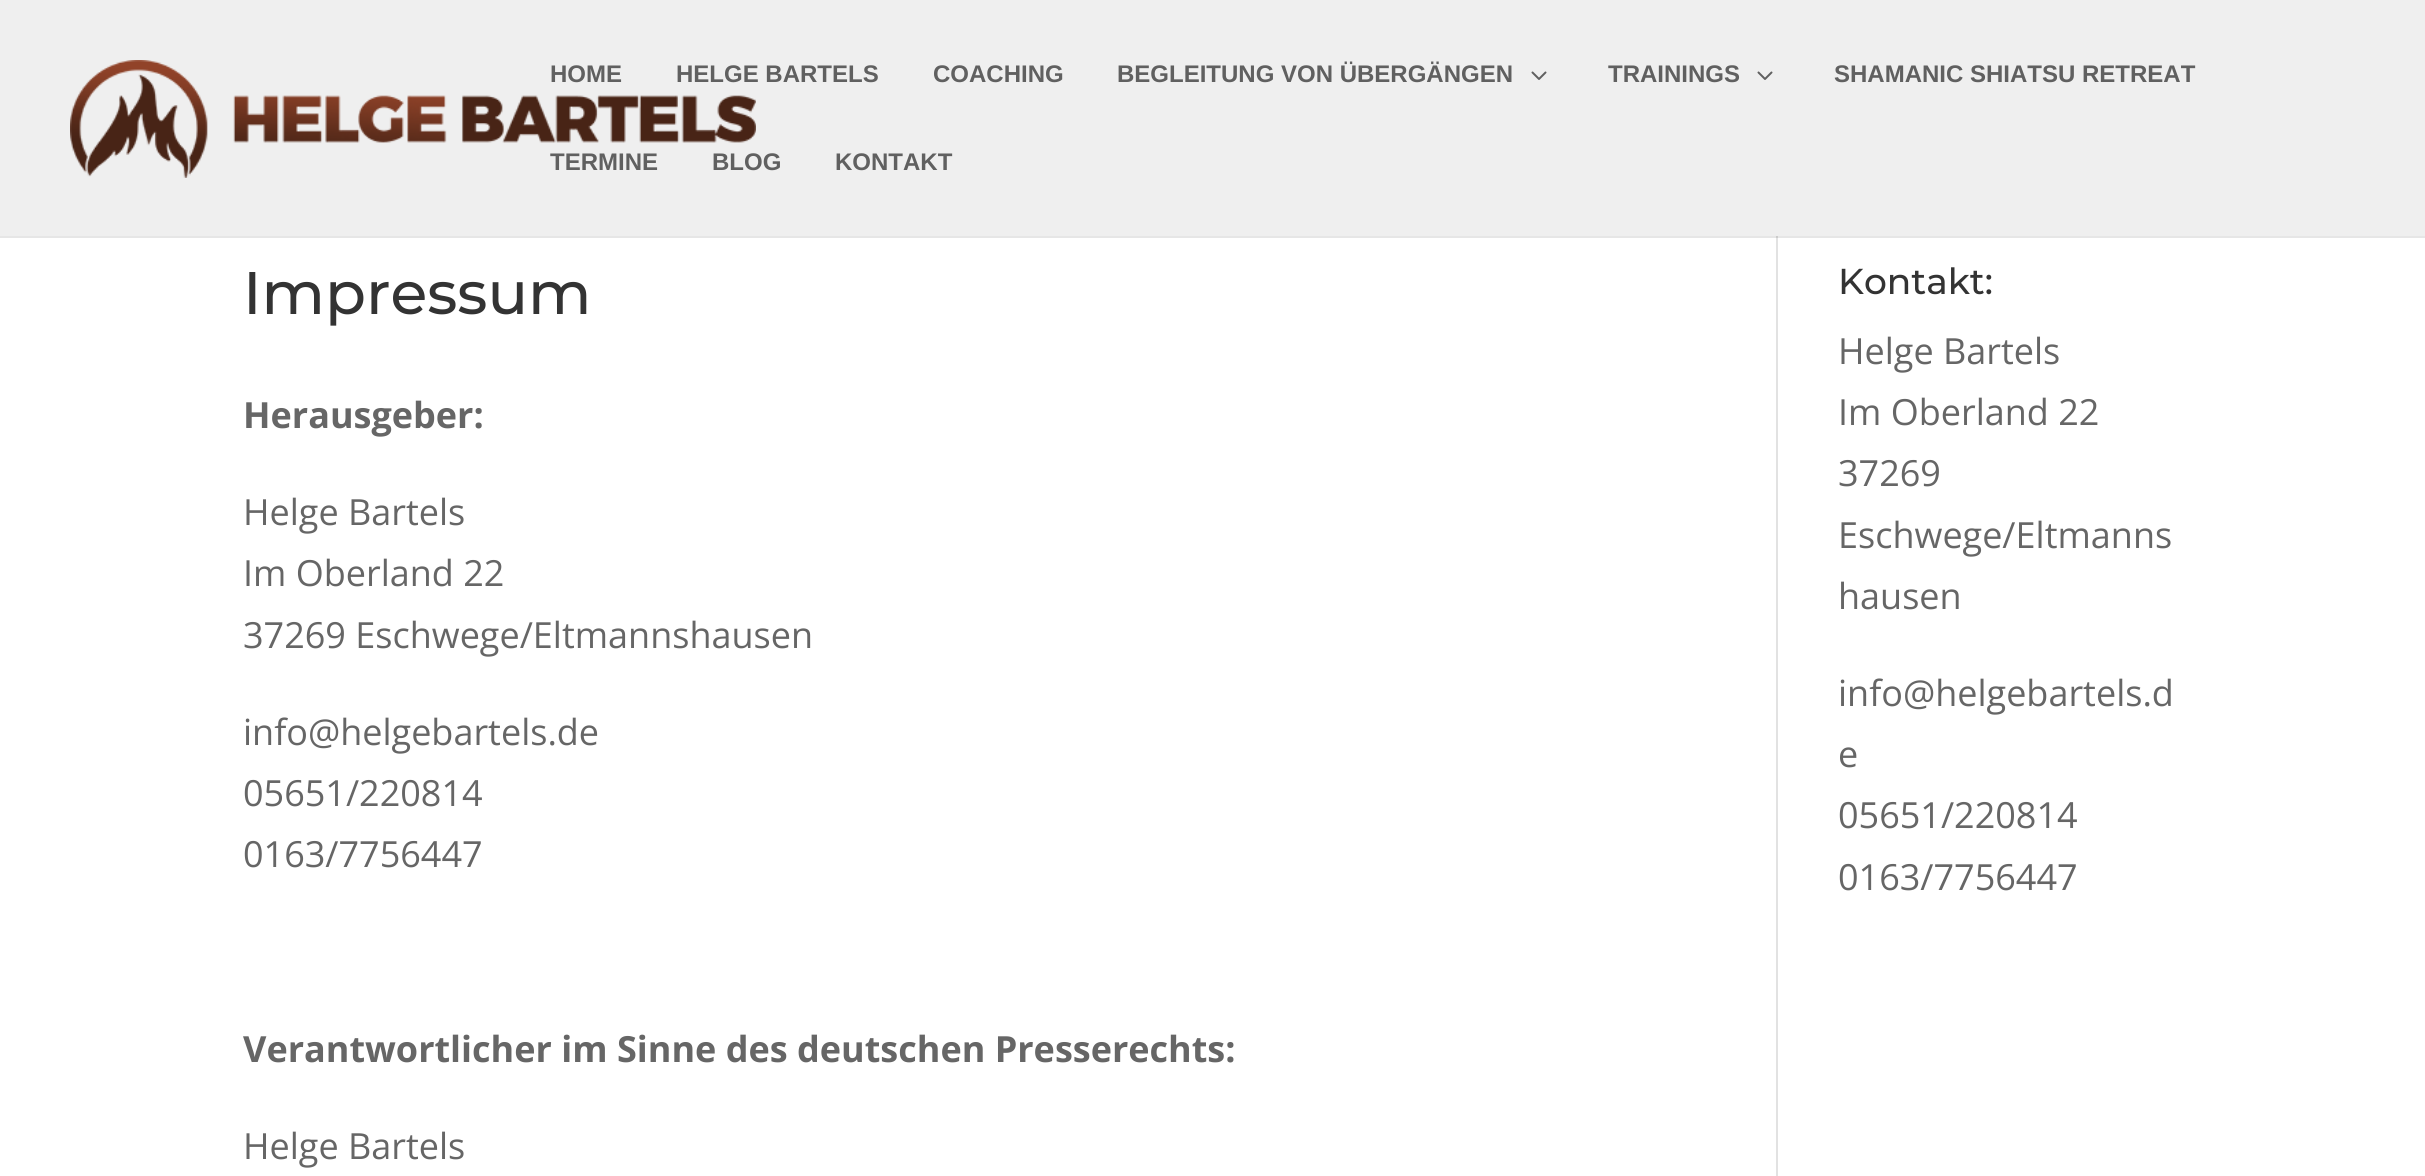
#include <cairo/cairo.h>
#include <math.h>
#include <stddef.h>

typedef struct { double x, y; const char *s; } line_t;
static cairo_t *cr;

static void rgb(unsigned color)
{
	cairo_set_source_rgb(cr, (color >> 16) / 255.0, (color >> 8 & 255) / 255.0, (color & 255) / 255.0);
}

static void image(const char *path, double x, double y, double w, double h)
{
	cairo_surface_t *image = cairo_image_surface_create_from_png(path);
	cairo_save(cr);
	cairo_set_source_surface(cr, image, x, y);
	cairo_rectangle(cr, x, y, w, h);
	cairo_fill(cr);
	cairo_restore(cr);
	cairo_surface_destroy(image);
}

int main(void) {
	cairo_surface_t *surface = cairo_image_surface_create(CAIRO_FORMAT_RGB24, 2425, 1176);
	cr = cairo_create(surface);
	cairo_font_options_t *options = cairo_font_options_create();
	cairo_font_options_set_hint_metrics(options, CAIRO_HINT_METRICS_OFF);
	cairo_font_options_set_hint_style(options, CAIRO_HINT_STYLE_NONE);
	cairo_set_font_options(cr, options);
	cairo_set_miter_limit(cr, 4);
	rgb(0xffffff);
	cairo_paint(cr);
	rgb(0xe6e6e6);
	cairo_rectangle(cr, 0, 236, 2425, 2);
	cairo_fill(cr);
	rgb(0xefefef);
	cairo_rectangle(cr, 0, 0, 2425, 236);
	cairo_fill(cr);
	image("img/1.png", 70, 60, 686, 118);
	image("img/2.png", 1531, 71, 16, 9);
	image("img/2.png", 1757, 71, 16, 9);
	rgb(0xe2e2e2);
	cairo_rectangle(cr, 1776, 238, 2, 938);
	cairo_fill(cr);
	rgb(0xcbcbcb);
	cairo_rectangle(cr, 1776, 236, 2, 2);
	cairo_fill(cr);
	cairo_select_font_face(cr, "Liberation Sans", CAIRO_FONT_SLANT_NORMAL, CAIRO_FONT_WEIGHT_BOLD);
	cairo_set_font_size(cr, 24);
	rgb(0x606060);
	{
		static const line_t items[] = {
			{550, 82, "HOME"},
			{676, 82, "HELGE BARTELS"},
			{933, 82, "COACHING"},
			{1117, 82, "BEGLEITUNG VON ÜBERGÄNGEN"},
			{1608, 82, "TRAININGS"},
			{1834, 82, "SHAMANIC SHIATSU RETREAT"},
			{550, 170, "TERMINE"},
			{712, 170, "BLOG"},
			{835, 170, "KONTAKT"},
		};
		for (size_t i = 0; i < sizeof items / sizeof *items; i++) {
			cairo_move_to(cr, items[i].x, items[i].y);
			cairo_show_text(cr, items[i].s);
		}
	}
	cairo_select_font_face(cr, "Montserrat Medium", CAIRO_FONT_SLANT_NORMAL, CAIRO_FONT_WEIGHT_NORMAL);
	cairo_set_font_size(cr, 60);
	rgb(0x333333);
	cairo_move_to(cr, 243, 314);
	cairo_show_text(cr, "Impressum");
	cairo_select_font_face(cr, "Open Sans", CAIRO_FONT_SLANT_NORMAL, CAIRO_FONT_WEIGHT_BOLD);
	cairo_set_font_size(cr, 36);
	rgb(0x666666);
	cairo_move_to(cr, 243, 428);
	cairo_show_text(cr, "Herausgeber:");
	cairo_select_font_face(cr, "Open Sans", CAIRO_FONT_SLANT_NORMAL, CAIRO_FONT_WEIGHT_NORMAL);
	{
		static const line_t items[] = {
			{243, 525, "Helge Bartels"},
			{243, 586, "Im Oberland 22"},
			{243, 648, "37269 Eschwege/Eltmannshausen"},
			{243, 745, "info@helgebartels.de"},
			{243, 806, "05651/220814"},
			{243, 867, "0163/7756447"},
		};
		for (size_t i = 0; i < sizeof items / sizeof *items; i++) {
			cairo_move_to(cr, items[i].x, items[i].y);
			cairo_show_text(cr, items[i].s);
		}
	}
	cairo_select_font_face(cr, "Open Sans", CAIRO_FONT_SLANT_NORMAL, CAIRO_FONT_WEIGHT_BOLD);
	cairo_move_to(cr, 243, 1062);
	cairo_show_text(cr, "Verantwortlicher im Sinne des deutschen Presserechts:");
	cairo_select_font_face(cr, "Open Sans", CAIRO_FONT_SLANT_NORMAL, CAIRO_FONT_WEIGHT_NORMAL);
	cairo_move_to(cr, 243, 1159);
	cairo_show_text(cr, "Helge Bartels");
	cairo_select_font_face(cr, "Montserrat Medium", CAIRO_FONT_SLANT_NORMAL, CAIRO_FONT_WEIGHT_NORMAL);
	rgb(0x333333);
	cairo_move_to(cr, 1838, 294);
	cairo_show_text(cr, "Kontakt:");
	cairo_select_font_face(cr, "Open Sans", CAIRO_FONT_SLANT_NORMAL, CAIRO_FONT_WEIGHT_NORMAL);
	rgb(0x666666);
	{
		static const line_t items[] = {
			{1838, 364, "Helge Bartels"},
			{1838, 425, "Im Oberland 22"},
			{1838, 486, "37269"},
			{1838, 548, "Eschwege/Eltmanns"},
			{1838, 609, "hausen"},
			{1838, 706, "info@helgebartels.d"},
			{1838, 767, "e"},
			{1838, 828, "05651/220814"},
			{1838, 890, "0163/7756447"},
		};
		for (size_t i = 0; i < sizeof items / sizeof *items; i++) {
			cairo_move_to(cr, items[i].x, items[i].y);
			cairo_show_text(cr, items[i].s);
		}
	}
	cairo_surface_write_to_png(surface, "page.png");
	cairo_font_options_destroy(options);
	cairo_destroy(cr);
	cairo_surface_destroy(surface);
	return 0;
}
